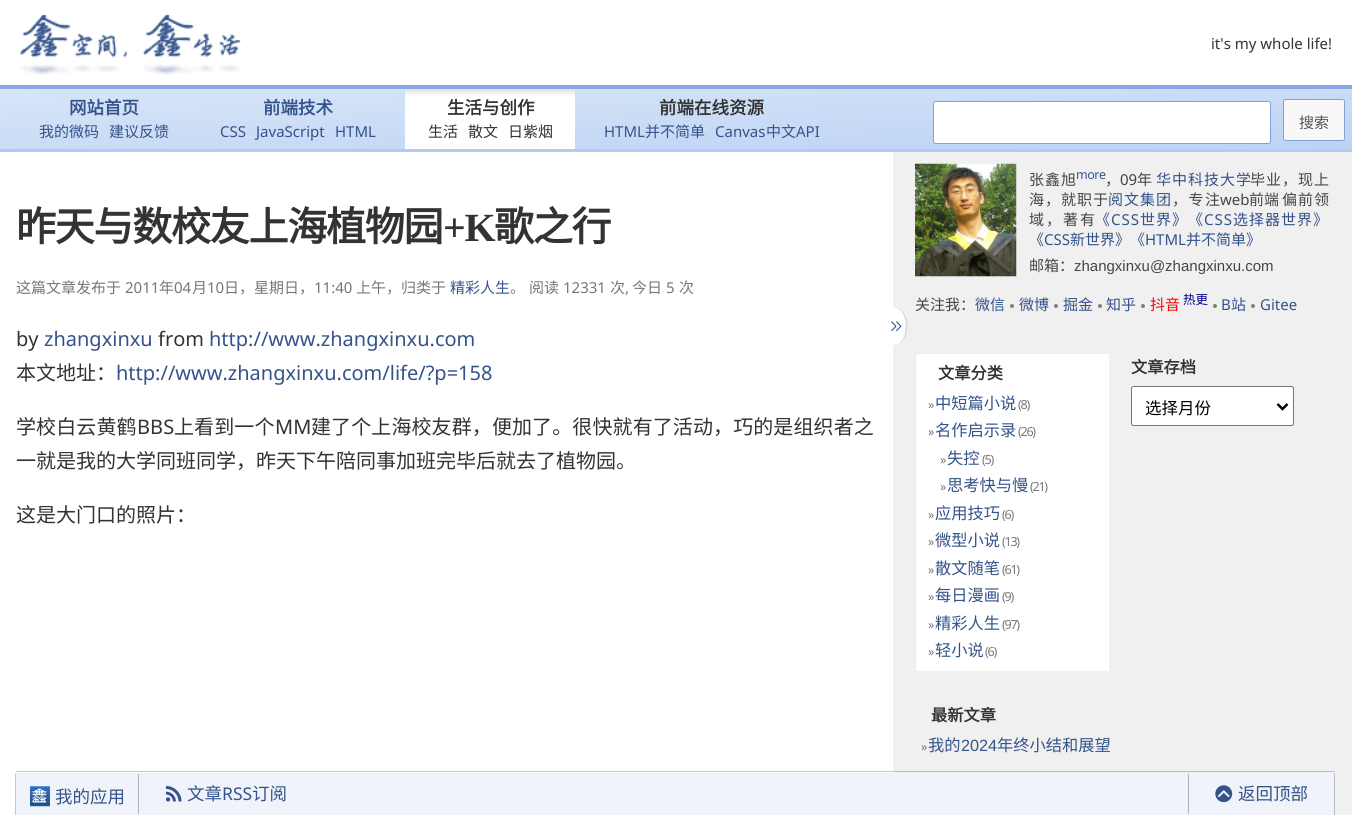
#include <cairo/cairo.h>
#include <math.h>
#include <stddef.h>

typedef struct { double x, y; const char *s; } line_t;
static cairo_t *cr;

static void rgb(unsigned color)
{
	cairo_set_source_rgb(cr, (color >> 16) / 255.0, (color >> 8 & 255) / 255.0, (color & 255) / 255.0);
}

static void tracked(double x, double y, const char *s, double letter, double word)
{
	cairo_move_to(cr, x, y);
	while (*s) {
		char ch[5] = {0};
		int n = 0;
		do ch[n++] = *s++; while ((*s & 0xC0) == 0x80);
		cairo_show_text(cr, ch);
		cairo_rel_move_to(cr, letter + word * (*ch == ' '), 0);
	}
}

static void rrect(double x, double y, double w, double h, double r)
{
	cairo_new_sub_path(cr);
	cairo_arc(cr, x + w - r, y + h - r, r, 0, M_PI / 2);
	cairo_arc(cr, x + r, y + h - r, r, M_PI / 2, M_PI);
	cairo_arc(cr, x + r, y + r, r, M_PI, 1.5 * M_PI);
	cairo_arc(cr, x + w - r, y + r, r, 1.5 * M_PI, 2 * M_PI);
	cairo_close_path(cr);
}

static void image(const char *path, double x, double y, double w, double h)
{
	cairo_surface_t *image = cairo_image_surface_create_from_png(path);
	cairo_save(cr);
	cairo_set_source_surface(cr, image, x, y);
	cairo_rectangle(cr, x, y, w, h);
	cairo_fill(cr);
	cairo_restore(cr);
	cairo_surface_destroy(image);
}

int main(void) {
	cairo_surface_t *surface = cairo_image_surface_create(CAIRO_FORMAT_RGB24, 1352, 815);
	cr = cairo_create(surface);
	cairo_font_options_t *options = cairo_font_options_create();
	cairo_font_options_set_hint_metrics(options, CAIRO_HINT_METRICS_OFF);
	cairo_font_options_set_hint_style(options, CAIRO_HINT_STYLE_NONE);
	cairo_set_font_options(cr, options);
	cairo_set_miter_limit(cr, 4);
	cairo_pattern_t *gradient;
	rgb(0xffffff);
	cairo_paint(cr);
	image("img/1.png", 19, 14, 222, 61);
	gradient = cairo_pattern_create_linear(674, 59, 679, 179);
	cairo_pattern_add_color_stop_rgba(gradient, 0, 0.847, 0.898, 0.969, 1);
	cairo_pattern_add_color_stop_rgba(gradient, 1, 0.737, 0.827, 0.961, 1);
	cairo_set_source(cr, gradient);
	cairo_pattern_destroy(gradient);
	cairo_rectangle(cr, 0, 89, 1352, 60);
	cairo_fill(cr);
	rgb(0x8ba7e3);
	cairo_rectangle(cr, 0, 85, 1352, 4);
	cairo_fill(cr);
	rgb(0xb4c9f5);
	cairo_rectangle(cr, 0, 149, 1352, 3);
	cairo_fill(cr);
	gradient = cairo_pattern_create_linear(490, 89, 490, 149);
	cairo_pattern_add_color_stop_rgba(gradient, 0, 0.878, 0.878, 0.878, 1);
	cairo_pattern_add_color_stop_rgba(gradient, 0.12, 1, 1, 1, 1);
	cairo_set_source(cr, gradient);
	cairo_pattern_destroy(gradient);
	cairo_rectangle(cr, 405, 89, 170, 60);
	cairo_fill(cr);
	rgb(0xffffff);
	rrect(933.5, 101.5, 337, 42, 2);
	cairo_fill_preserve(cr);
	rgb(0x86a0d6);
	cairo_set_line_width(cr, 1);
	cairo_stroke(cr);
	rgb(0xf8f8f8);
	rrect(1283.5, 99.5, 61, 41, 2);
	cairo_fill_preserve(cr);
	rgb(0x86a0d6);
	cairo_stroke(cr);
	rgb(0xf0f0f0);
	cairo_rectangle(cr, 893, 152, 459, 663);
	cairo_fill(cr);
	image("img/2.png", 915, 163, 102, 114);
	rgb(0x808080);
	cairo_arc(cr, 1012, 306, 2, 0, 2 * M_PI);
	cairo_fill(cr);
	cairo_arc(cr, 1056, 306, 2, 0, 2 * M_PI);
	cairo_fill(cr);
	cairo_arc(cr, 1100, 306, 2, 0, 2 * M_PI);
	cairo_fill(cr);
	cairo_arc(cr, 1143, 306, 2, 0, 2 * M_PI);
	cairo_fill(cr);
	cairo_arc(cr, 1215, 306, 2, 0, 2 * M_PI);
	cairo_fill(cr);
	cairo_arc(cr, 1253, 306, 2, 0, 2 * M_PI);
	cairo_fill(cr);
	rgb(0xd8d8d8);
	cairo_new_path(cr);
	cairo_move_to(cr, 893, 345);
	cairo_curve_to(cr, 912, 345, 912.5, 307.5, 893, 307.5);
	cairo_curve_to(cr, 900.5, 307.5, 906, 316, 906, 326);
	cairo_curve_to(cr, 906, 336.5, 900.5, 345, 893, 345);
	cairo_close_path(cr);
	cairo_fill(cr);
	rgb(0xffffff);
	cairo_new_path(cr);
	cairo_move_to(cr, 880, 307.5);
	cairo_line_to(cr, 893, 307.5);
	cairo_curve_to(cr, 900.5, 307.5, 906, 316, 906, 326);
	cairo_curve_to(cr, 906, 336.5, 900.5, 345, 893, 345);
	cairo_line_to(cr, 880, 345);
	cairo_close_path(cr);
	cairo_fill(cr);
	cairo_set_source_rgba(cr, 0, 0, 0, 0.05);
	cairo_rectangle(cr, 905, 318, 1, 18);
	cairo_fill(cr);
	image("img/3.png", 891, 321, 11, 11);
	rgb(0xffffff);
	cairo_rectangle(cr, 916, 354, 193, 317);
	cairo_fill(cr);
	cairo_save(cr);
	cairo_rectangle(cr, 915, 353, 194, 318);
	cairo_clip(cr);
	rgb(0xebebeb);
	cairo_set_fill_rule(cr, CAIRO_FILL_RULE_EVEN_ODD);
	cairo_new_path(cr);
	cairo_move_to(cr, 791, 229);
	cairo_line_to(cr, 1232, 229);
	cairo_line_to(cr, 1232, 795);
	cairo_line_to(cr, 791, 795);
	cairo_close_path(cr);
	cairo_move_to(cr, 916, 354);
	cairo_line_to(cr, 1110, 354);
	cairo_line_to(cr, 1110, 672);
	cairo_line_to(cr, 916, 672);
	cairo_close_path(cr);
	cairo_fill(cr);
	cairo_restore(cr);
	rrect(1131.5, 386.5, 162, 39, 2);
	cairo_fill_preserve(cr);
	rgb(0x767676);
	cairo_stroke(cr);
	cairo_new_path(cr);
	cairo_move_to(cr, 1277.5, 404);
	cairo_line_to(cr, 1282.5, 409);
	cairo_line_to(cr, 1287.5, 404);
	rgb(0x000000);
	cairo_set_line_width(cr, 2.5);
	cairo_stroke(cr);
	rgb(0xc0c8d9);
	cairo_rectangle(cr, 15, 773, 1, 42);
	cairo_fill(cr);
	rgb(0xb7bfcf);
	cairo_rectangle(cr, 1334, 773, 1, 42);
	cairo_fill(cr);
	cairo_set_source_rgba(cr, 0.298, 0.388, 0.576, 0.35);
	cairo_new_path(cr);
	cairo_move_to(cr, 16, 771);
	cairo_line_to(cr, 16, 814);
	cairo_line_to(cr, 16, 772);
	cairo_line_to(cr, 1334, 772);
	cairo_line_to(cr, 1334, 814);
	cairo_line_to(cr, 1334, 771);
	cairo_close_path(cr);
	cairo_fill(cr);
	rgb(0xf0f3f9);
	cairo_rectangle(cr, 16, 773, 1318, 42);
	cairo_fill(cr);
	rgb(0xadb2b9);
	cairo_rectangle(cr, 138, 774, 1, 40);
	cairo_fill(cr);
	image("img/4.png", 30, 786, 20, 21);
	image("img/5.png", 165, 786, 17, 16);
	cairo_rectangle(cr, 1188, 774, 1, 40);
	cairo_fill(cr);
	image("img/6.png", 1215, 785, 18, 18);
	cairo_select_font_face(cr, "Noto Sans", CAIRO_FONT_SLANT_NORMAL, CAIRO_FONT_WEIGHT_NORMAL);
	cairo_set_font_size(cr, 15);
	rgb(0x333333);
	cairo_move_to(cr, 1211, 49);
	cairo_show_text(cr, "it's my whole life!");
	cairo_select_font_face(cr, "Noto Sans CJK SC", CAIRO_FONT_SLANT_NORMAL, CAIRO_FONT_WEIGHT_BOLD);
	cairo_set_font_size(cr, 17.5);
	rgb(0x34538b);
	cairo_move_to(cr, 69, 114);
	cairo_show_text(cr, "网站首页");
	cairo_select_font_face(cr, "Noto Sans CJK SC", CAIRO_FONT_SLANT_NORMAL, CAIRO_FONT_WEIGHT_NORMAL);
	cairo_set_font_size(cr, 15);
	cairo_move_to(cr, 39, 137);
	cairo_show_text(cr, "我的微码");
	cairo_move_to(cr, 109, 137);
	cairo_show_text(cr, "建议反馈");
	cairo_select_font_face(cr, "Noto Sans CJK SC", CAIRO_FONT_SLANT_NORMAL, CAIRO_FONT_WEIGHT_BOLD);
	cairo_set_font_size(cr, 17.5);
	cairo_move_to(cr, 263, 114);
	cairo_show_text(cr, "前端技术");
	cairo_select_font_face(cr, "Noto Sans", CAIRO_FONT_SLANT_NORMAL, CAIRO_FONT_WEIGHT_NORMAL);
	cairo_set_font_size(cr, 15);
	{
		static const line_t items[] = {
			{220, 137, "CSS"},
			{256, 137, "JavaScript"},
			{335, 137, "HTML"},
		};
		for (size_t i = 0; i < sizeof items / sizeof *items; i++) {
			cairo_move_to(cr, items[i].x, items[i].y);
			cairo_show_text(cr, items[i].s);
		}
	}
	cairo_select_font_face(cr, "Noto Sans CJK SC", CAIRO_FONT_SLANT_NORMAL, CAIRO_FONT_WEIGHT_BOLD);
	cairo_set_font_size(cr, 17.5);
	rgb(0x333333);
	cairo_move_to(cr, 447, 114);
	cairo_show_text(cr, "生活与创作");
	cairo_select_font_face(cr, "Noto Sans CJK SC", CAIRO_FONT_SLANT_NORMAL, CAIRO_FONT_WEIGHT_NORMAL);
	cairo_set_font_size(cr, 15);
	{
		static const line_t items[] = {
			{428, 137, "生活"},
			{468, 137, "散文"},
			{508, 137, "日紫烟"},
		};
		for (size_t i = 0; i < sizeof items / sizeof *items; i++) {
			cairo_move_to(cr, items[i].x, items[i].y);
			cairo_show_text(cr, items[i].s);
		}
	}
	cairo_select_font_face(cr, "Noto Sans CJK SC", CAIRO_FONT_SLANT_NORMAL, CAIRO_FONT_WEIGHT_BOLD);
	cairo_set_font_size(cr, 17.5);
	cairo_move_to(cr, 659, 114);
	cairo_show_text(cr, "前端在线资源");
	cairo_select_font_face(cr, "Noto Sans", CAIRO_FONT_SLANT_NORMAL, CAIRO_FONT_WEIGHT_NORMAL);
	cairo_set_font_size(cr, 15);
	rgb(0x34538b);
	cairo_move_to(cr, 604, 137);
	cairo_show_text(cr, "HTML");
	cairo_select_font_face(cr, "Noto Sans CJK SC", CAIRO_FONT_SLANT_NORMAL, CAIRO_FONT_WEIGHT_NORMAL);
	cairo_move_to(cr, 645, 137);
	cairo_show_text(cr, "并不简单");
	cairo_select_font_face(cr, "Noto Sans", CAIRO_FONT_SLANT_NORMAL, CAIRO_FONT_WEIGHT_NORMAL);
	cairo_move_to(cr, 715, 137);
	cairo_show_text(cr, "Canvas");
	cairo_select_font_face(cr, "Noto Sans CJK SC", CAIRO_FONT_SLANT_NORMAL, CAIRO_FONT_WEIGHT_NORMAL);
	cairo_move_to(cr, 766, 137);
	cairo_show_text(cr, "中文");
	cairo_select_font_face(cr, "Noto Sans", CAIRO_FONT_SLANT_NORMAL, CAIRO_FONT_WEIGHT_NORMAL);
	cairo_move_to(cr, 796, 137);
	cairo_show_text(cr, "API");
	cairo_select_font_face(cr, "Noto Sans CJK SC", CAIRO_FONT_SLANT_NORMAL, CAIRO_FONT_WEIGHT_NORMAL);
	rgb(0x555555);
	cairo_move_to(cr, 1299, 128);
	cairo_show_text(cr, "搜索");
	cairo_select_font_face(cr, "Noto Sans CJK SC", CAIRO_FONT_SLANT_NORMAL, CAIRO_FONT_WEIGHT_BOLD);
	cairo_set_font_size(cr, 40);
	rgb(0x333333);
	tracked(16, 241, "昨天与数校友上海植物园", -1.25, 0);
	cairo_select_font_face(cr, "Liberation Serif", CAIRO_FONT_SLANT_NORMAL, CAIRO_FONT_WEIGHT_BOLD);
	tracked(443, 241, "+K", -1.25, 0);
	cairo_select_font_face(cr, "Noto Sans CJK SC", CAIRO_FONT_SLANT_NORMAL, CAIRO_FONT_WEIGHT_BOLD);
	tracked(494, 241, "歌之行", -1.25, 0);
	cairo_select_font_face(cr, "Noto Sans CJK SC", CAIRO_FONT_SLANT_NORMAL, CAIRO_FONT_WEIGHT_NORMAL);
	cairo_set_font_size(cr, 15);
	rgb(0x777777);
	cairo_move_to(cr, 16, 293);
	cairo_show_text(cr, "这篇文章发布于");
	cairo_select_font_face(cr, "Noto Sans", CAIRO_FONT_SLANT_NORMAL, CAIRO_FONT_WEIGHT_NORMAL);
	cairo_move_to(cr, 125, 293);
	cairo_show_text(cr, "2011");
	cairo_select_font_face(cr, "Noto Sans CJK SC", CAIRO_FONT_SLANT_NORMAL, CAIRO_FONT_WEIGHT_NORMAL);
	cairo_move_to(cr, 159, 293);
	cairo_show_text(cr, "年");
	cairo_select_font_face(cr, "Noto Sans", CAIRO_FONT_SLANT_NORMAL, CAIRO_FONT_WEIGHT_NORMAL);
	cairo_move_to(cr, 174, 293);
	cairo_show_text(cr, "04");
	cairo_select_font_face(cr, "Noto Sans CJK SC", CAIRO_FONT_SLANT_NORMAL, CAIRO_FONT_WEIGHT_NORMAL);
	cairo_move_to(cr, 192, 293);
	cairo_show_text(cr, "月");
	cairo_select_font_face(cr, "Noto Sans", CAIRO_FONT_SLANT_NORMAL, CAIRO_FONT_WEIGHT_NORMAL);
	cairo_move_to(cr, 207, 293);
	cairo_show_text(cr, "10");
	cairo_select_font_face(cr, "Noto Sans CJK SC", CAIRO_FONT_SLANT_NORMAL, CAIRO_FONT_WEIGHT_NORMAL);
	cairo_move_to(cr, 224, 293);
	cairo_show_text(cr, "日，星期日，");
	cairo_select_font_face(cr, "Noto Sans", CAIRO_FONT_SLANT_NORMAL, CAIRO_FONT_WEIGHT_NORMAL);
	cairo_move_to(cr, 314, 293);
	cairo_show_text(cr, "11:40");
	cairo_select_font_face(cr, "Noto Sans CJK SC", CAIRO_FONT_SLANT_NORMAL, CAIRO_FONT_WEIGHT_NORMAL);
	cairo_move_to(cr, 356, 293);
	cairo_show_text(cr, "上午，归类于");
	rgb(0x34538b);
	cairo_move_to(cr, 450, 293);
	cairo_show_text(cr, "精彩人生");
	rgb(0x777777);
	cairo_move_to(cr, 510, 293);
	cairo_show_text(cr, "。");
	cairo_move_to(cr, 529, 293);
	cairo_show_text(cr, "阅读");
	cairo_select_font_face(cr, "Noto Sans", CAIRO_FONT_SLANT_NORMAL, CAIRO_FONT_WEIGHT_NORMAL);
	cairo_move_to(cr, 563, 293);
	cairo_show_text(cr, "12331");
	cairo_select_font_face(cr, "Noto Sans CJK SC", CAIRO_FONT_SLANT_NORMAL, CAIRO_FONT_WEIGHT_NORMAL);
	cairo_move_to(cr, 610, 293);
	cairo_show_text(cr, "次");
	cairo_select_font_face(cr, "Noto Sans", CAIRO_FONT_SLANT_NORMAL, CAIRO_FONT_WEIGHT_NORMAL);
	cairo_move_to(cr, 625, 293);
	cairo_show_text(cr, ",");
	cairo_select_font_face(cr, "Noto Sans CJK SC", CAIRO_FONT_SLANT_NORMAL, CAIRO_FONT_WEIGHT_NORMAL);
	cairo_move_to(cr, 632, 293);
	cairo_show_text(cr, "今日");
	cairo_select_font_face(cr, "Noto Sans", CAIRO_FONT_SLANT_NORMAL, CAIRO_FONT_WEIGHT_NORMAL);
	cairo_move_to(cr, 666, 293);
	cairo_show_text(cr, "5");
	cairo_select_font_face(cr, "Noto Sans CJK SC", CAIRO_FONT_SLANT_NORMAL, CAIRO_FONT_WEIGHT_NORMAL);
	cairo_move_to(cr, 679, 293);
	cairo_show_text(cr, "次");
	cairo_select_font_face(cr, "Noto Sans", CAIRO_FONT_SLANT_NORMAL, CAIRO_FONT_WEIGHT_NORMAL);
	cairo_set_font_size(cr, 20);
	rgb(0x333333);
	cairo_move_to(cr, 16, 346);
	cairo_show_text(cr, "by");
	rgb(0x34538b);
	cairo_move_to(cr, 44, 346);
	cairo_show_text(cr, "zhangxinxu");
	rgb(0x333333);
	cairo_move_to(cr, 158, 346);
	cairo_show_text(cr, "from");
	rgb(0x34538b);
	cairo_move_to(cr, 209, 346);
	cairo_show_text(cr, "http://www.zhangxinxu.com");
	cairo_select_font_face(cr, "Noto Sans CJK SC", CAIRO_FONT_SLANT_NORMAL, CAIRO_FONT_WEIGHT_NORMAL);
	rgb(0x333333);
	cairo_move_to(cr, 16, 380);
	cairo_show_text(cr, "本文地址：");
	cairo_select_font_face(cr, "Noto Sans", CAIRO_FONT_SLANT_NORMAL, CAIRO_FONT_WEIGHT_NORMAL);
	rgb(0x34538b);
	cairo_move_to(cr, 116, 380);
	cairo_show_text(cr, "http://www.zhangxinxu.com/life/?p=158");
	cairo_select_font_face(cr, "Noto Sans CJK SC", CAIRO_FONT_SLANT_NORMAL, CAIRO_FONT_WEIGHT_NORMAL);
	rgb(0x333333);
	tracked(16, 434, "学校白云黄鹤", 0.1, 0);
	cairo_select_font_face(cr, "Noto Sans", CAIRO_FONT_SLANT_NORMAL, CAIRO_FONT_WEIGHT_NORMAL);
	tracked(137, 434, "BBS", 0.1, 0);
	cairo_select_font_face(cr, "Noto Sans CJK SC", CAIRO_FONT_SLANT_NORMAL, CAIRO_FONT_WEIGHT_NORMAL);
	tracked(174, 434, "上看到一个", 0.1, 0);
	cairo_select_font_face(cr, "Noto Sans", CAIRO_FONT_SLANT_NORMAL, CAIRO_FONT_WEIGHT_NORMAL);
	tracked(275, 434, "MM", 0.1, 0);
	cairo_select_font_face(cr, "Noto Sans CJK SC", CAIRO_FONT_SLANT_NORMAL, CAIRO_FONT_WEIGHT_NORMAL);
	tracked(311, 434, "建了个上海校友群，便加了。很快就有了活动，巧的是组织者之", 0.1, 0);
	cairo_move_to(cr, 16, 468);
	cairo_show_text(cr, "一就是我的大学同班同学，昨天下午陪同事加班完毕后就去了植物园。");
	cairo_move_to(cr, 16, 522);
	cairo_show_text(cr, "这是大门口的照片：");
	cairo_set_font_size(cr, 15);
	rgb(0x454545);
	tracked(1029, 185, "张鑫旭", 1, 0);
	cairo_select_font_face(cr, "Noto Sans", CAIRO_FONT_SLANT_NORMAL, CAIRO_FONT_WEIGHT_NORMAL);
	cairo_set_font_size(cr, 12.5);
	rgb(0x34538b);
	tracked(1076, 179, "more", -0.5, 0);
	cairo_select_font_face(cr, "Noto Sans CJK SC", CAIRO_FONT_SLANT_NORMAL, CAIRO_FONT_WEIGHT_NORMAL);
	cairo_set_font_size(cr, 15);
	rgb(0x454545);
	cairo_move_to(cr, 1105, 185);
	cairo_show_text(cr, "，");
	cairo_select_font_face(cr, "Noto Sans", CAIRO_FONT_SLANT_NORMAL, CAIRO_FONT_WEIGHT_NORMAL);
	cairo_move_to(cr, 1120, 185);
	cairo_show_text(cr, "09");
	cairo_select_font_face(cr, "Noto Sans CJK SC", CAIRO_FONT_SLANT_NORMAL, CAIRO_FONT_WEIGHT_NORMAL);
	cairo_move_to(cr, 1137, 185);
	cairo_show_text(cr, "年");
	rgb(0x34538b);
	tracked(1156, 185, "华中科技大学", 1, 0);
	rgb(0x454545);
	tracked(1250, 185, "毕业，现", 1, 0);
	cairo_move_to(cr, 1314, 185);
	cairo_show_text(cr, "上");
	cairo_move_to(cr, 1029, 205);
	cairo_show_text(cr, "海");
	tracked(1045, 205, "，就职于", 1, 0);
	rgb(0x34538b);
	tracked(1108, 205, "阅文集团", 1, 0);
	rgb(0x454545);
	tracked(1172, 205, "，专注", 1.5, 0);
	cairo_select_font_face(cr, "Noto Sans", CAIRO_FONT_SLANT_NORMAL, CAIRO_FONT_WEIGHT_NORMAL);
	cairo_move_to(cr, 1220, 205);
	cairo_show_text(cr, "web");
	cairo_select_font_face(cr, "Noto Sans CJK SC", CAIRO_FONT_SLANT_NORMAL, CAIRO_FONT_WEIGHT_NORMAL);
	cairo_move_to(cr, 1249, 205);
	cairo_show_text(cr, "前端");
	tracked(1282, 205, "偏前领", 1, 0);
	tracked(1029, 225, "域，著有", 2, 0);
	rgb(0x34538b);
	tracked(1095, 225, "《", 1, 0);
	cairo_select_font_face(cr, "Noto Sans", CAIRO_FONT_SLANT_NORMAL, CAIRO_FONT_WEIGHT_NORMAL);
	tracked(1111, 225, "CSS", 1, 0);
	cairo_select_font_face(cr, "Noto Sans CJK SC", CAIRO_FONT_SLANT_NORMAL, CAIRO_FONT_WEIGHT_NORMAL);
	tracked(1140, 225, "世界》", 1, 0);
	tracked(1188, 225, "《", 1, 0);
	cairo_select_font_face(cr, "Noto Sans", CAIRO_FONT_SLANT_NORMAL, CAIRO_FONT_WEIGHT_NORMAL);
	tracked(1204, 225, "CSS", 1, 0);
	cairo_select_font_face(cr, "Noto Sans CJK SC", CAIRO_FONT_SLANT_NORMAL, CAIRO_FONT_WEIGHT_NORMAL);
	tracked(1233, 225, "选择器世界》", 1, 0);
	cairo_move_to(cr, 1029, 245);
	cairo_show_text(cr, "《");
	cairo_select_font_face(cr, "Noto Sans", CAIRO_FONT_SLANT_NORMAL, CAIRO_FONT_WEIGHT_NORMAL);
	cairo_move_to(cr, 1044, 245);
	cairo_show_text(cr, "CSS");
	cairo_select_font_face(cr, "Noto Sans CJK SC", CAIRO_FONT_SLANT_NORMAL, CAIRO_FONT_WEIGHT_NORMAL);
	cairo_move_to(cr, 1070, 245);
	cairo_show_text(cr, "新世界》《");
	cairo_select_font_face(cr, "Noto Sans", CAIRO_FONT_SLANT_NORMAL, CAIRO_FONT_WEIGHT_NORMAL);
	cairo_move_to(cr, 1145, 245);
	cairo_show_text(cr, "HTML");
	cairo_select_font_face(cr, "Noto Sans CJK SC", CAIRO_FONT_SLANT_NORMAL, CAIRO_FONT_WEIGHT_NORMAL);
	cairo_move_to(cr, 1186, 245);
	cairo_show_text(cr, "并不简单》");
	rgb(0x454545);
	cairo_move_to(cr, 1029, 271);
	cairo_show_text(cr, "邮箱：");
	cairo_select_font_face(cr, "Liberation Sans", CAIRO_FONT_SLANT_NORMAL, CAIRO_FONT_WEIGHT_NORMAL);
	cairo_move_to(cr, 1074, 271);
	cairo_show_text(cr, "zhangxinxu@zhangxinxu.com");
	cairo_select_font_face(cr, "Noto Sans CJK SC", CAIRO_FONT_SLANT_NORMAL, CAIRO_FONT_WEIGHT_NORMAL);
	cairo_move_to(cr, 915, 310);
	cairo_show_text(cr, "关注我：");
	rgb(0x34538b);
	{
		static const line_t items[] = {
			{975, 310, "微信"},
			{1019, 310, "微博"},
			{1063, 310, "掘金"},
			{1106, 310, "知乎"},
		};
		for (size_t i = 0; i < sizeof items / sizeof *items; i++) {
			cairo_move_to(cr, items[i].x, items[i].y);
			cairo_show_text(cr, items[i].s);
		}
	}
	rgb(0xff0000);
	cairo_move_to(cr, 1150, 310);
	cairo_show_text(cr, "抖音");
	cairo_set_font_size(cr, 12.5);
	rgb(0x00008b);
	cairo_move_to(cr, 1183, 304);
	cairo_show_text(cr, "热更");
	cairo_select_font_face(cr, "Noto Sans", CAIRO_FONT_SLANT_NORMAL, CAIRO_FONT_WEIGHT_NORMAL);
	cairo_set_font_size(cr, 15);
	rgb(0x34538b);
	cairo_move_to(cr, 1221, 310);
	cairo_show_text(cr, "B");
	cairo_select_font_face(cr, "Noto Sans CJK SC", CAIRO_FONT_SLANT_NORMAL, CAIRO_FONT_WEIGHT_NORMAL);
	cairo_move_to(cr, 1231, 310);
	cairo_show_text(cr, "站");
	cairo_select_font_face(cr, "Noto Sans", CAIRO_FONT_SLANT_NORMAL, CAIRO_FONT_WEIGHT_NORMAL);
	cairo_move_to(cr, 1260, 310);
	cairo_show_text(cr, "Gitee");
	cairo_select_font_face(cr, "Noto Sans CJK SC", CAIRO_FONT_SLANT_NORMAL, CAIRO_FONT_WEIGHT_BOLD);
	cairo_set_font_size(cr, 16.25);
	rgb(0x333333);
	cairo_move_to(cr, 938, 379);
	cairo_show_text(cr, "文章分类");
	cairo_select_font_face(cr, "Noto Sans", CAIRO_FONT_SLANT_NORMAL, CAIRO_FONT_WEIGHT_NORMAL);
	cairo_set_font_size(cr, 12.5);
	rgb(0x777777);
	tracked(928, 409, "»", -1.25, 0);
	cairo_select_font_face(cr, "Noto Sans CJK SC", CAIRO_FONT_SLANT_NORMAL, CAIRO_FONT_WEIGHT_NORMAL);
	cairo_set_font_size(cr, 16.25);
	rgb(0x34538b);
	cairo_move_to(cr, 935, 409);
	cairo_show_text(cr, "中短篇小说");
	cairo_select_font_face(cr, "Noto Sans", CAIRO_FONT_SLANT_NORMAL, CAIRO_FONT_WEIGHT_NORMAL);
	cairo_set_font_size(cr, 12.5);
	rgb(0x777777);
	tracked(1018, 409, "(8)", -1.25, 0);
	tracked(928, 436, "»", -1.25, 0);
	cairo_select_font_face(cr, "Noto Sans CJK SC", CAIRO_FONT_SLANT_NORMAL, CAIRO_FONT_WEIGHT_NORMAL);
	cairo_set_font_size(cr, 16.25);
	rgb(0x34538b);
	cairo_move_to(cr, 935, 436);
	cairo_show_text(cr, "名作启示录");
	cairo_select_font_face(cr, "Noto Sans", CAIRO_FONT_SLANT_NORMAL, CAIRO_FONT_WEIGHT_NORMAL);
	cairo_set_font_size(cr, 12.5);
	rgb(0x777777);
	tracked(1018, 436, "(26)", -1.25, 0);
	tracked(940, 464, "»", -1.25, 0);
	cairo_select_font_face(cr, "Noto Sans CJK SC", CAIRO_FONT_SLANT_NORMAL, CAIRO_FONT_WEIGHT_NORMAL);
	cairo_set_font_size(cr, 16.25);
	rgb(0x34538b);
	cairo_move_to(cr, 947, 464);
	cairo_show_text(cr, "失控");
	cairo_select_font_face(cr, "Noto Sans", CAIRO_FONT_SLANT_NORMAL, CAIRO_FONT_WEIGHT_NORMAL);
	cairo_set_font_size(cr, 12.5);
	rgb(0x777777);
	tracked(982, 464, "(5)", -1.25, 0);
	tracked(940, 491, "»", -1.25, 0);
	cairo_select_font_face(cr, "Noto Sans CJK SC", CAIRO_FONT_SLANT_NORMAL, CAIRO_FONT_WEIGHT_NORMAL);
	cairo_set_font_size(cr, 16.25);
	rgb(0x34538b);
	cairo_move_to(cr, 947, 491);
	cairo_show_text(cr, "思考快与慢");
	cairo_select_font_face(cr, "Noto Sans", CAIRO_FONT_SLANT_NORMAL, CAIRO_FONT_WEIGHT_NORMAL);
	cairo_set_font_size(cr, 12.5);
	rgb(0x777777);
	tracked(1030, 491, "(21)", -1.25, 0);
	tracked(928, 519, "»", -1.25, 0);
	cairo_select_font_face(cr, "Noto Sans CJK SC", CAIRO_FONT_SLANT_NORMAL, CAIRO_FONT_WEIGHT_NORMAL);
	cairo_set_font_size(cr, 16.25);
	rgb(0x34538b);
	cairo_move_to(cr, 935, 519);
	cairo_show_text(cr, "应用技巧");
	cairo_select_font_face(cr, "Noto Sans", CAIRO_FONT_SLANT_NORMAL, CAIRO_FONT_WEIGHT_NORMAL);
	cairo_set_font_size(cr, 12.5);
	rgb(0x777777);
	tracked(1002, 519, "(6)", -1.25, 0);
	tracked(928, 546, "»", -1.25, 0);
	cairo_select_font_face(cr, "Noto Sans CJK SC", CAIRO_FONT_SLANT_NORMAL, CAIRO_FONT_WEIGHT_NORMAL);
	cairo_set_font_size(cr, 16.25);
	rgb(0x34538b);
	cairo_move_to(cr, 935, 546);
	cairo_show_text(cr, "微型小说");
	cairo_select_font_face(cr, "Noto Sans", CAIRO_FONT_SLANT_NORMAL, CAIRO_FONT_WEIGHT_NORMAL);
	cairo_set_font_size(cr, 12.5);
	rgb(0x777777);
	tracked(1002, 546, "(13)", -1.25, 0);
	tracked(928, 574, "»", -1.25, 0);
	cairo_select_font_face(cr, "Noto Sans CJK SC", CAIRO_FONT_SLANT_NORMAL, CAIRO_FONT_WEIGHT_NORMAL);
	cairo_set_font_size(cr, 16.25);
	rgb(0x34538b);
	cairo_move_to(cr, 935, 574);
	cairo_show_text(cr, "散文随笔");
	cairo_select_font_face(cr, "Noto Sans", CAIRO_FONT_SLANT_NORMAL, CAIRO_FONT_WEIGHT_NORMAL);
	cairo_set_font_size(cr, 12.5);
	rgb(0x777777);
	tracked(1002, 574, "(61)", -1.25, 0);
	tracked(928, 601, "»", -1.25, 0);
	cairo_select_font_face(cr, "Noto Sans CJK SC", CAIRO_FONT_SLANT_NORMAL, CAIRO_FONT_WEIGHT_NORMAL);
	cairo_set_font_size(cr, 16.25);
	rgb(0x34538b);
	cairo_move_to(cr, 935, 601);
	cairo_show_text(cr, "每日漫画");
	cairo_select_font_face(cr, "Noto Sans", CAIRO_FONT_SLANT_NORMAL, CAIRO_FONT_WEIGHT_NORMAL);
	cairo_set_font_size(cr, 12.5);
	rgb(0x777777);
	tracked(1002, 601, "(9)", -1.25, 0);
	tracked(928, 629, "»", -1.25, 0);
	cairo_select_font_face(cr, "Noto Sans CJK SC", CAIRO_FONT_SLANT_NORMAL, CAIRO_FONT_WEIGHT_NORMAL);
	cairo_set_font_size(cr, 16.25);
	rgb(0x34538b);
	cairo_move_to(cr, 935, 629);
	cairo_show_text(cr, "精彩人生");
	cairo_select_font_face(cr, "Noto Sans", CAIRO_FONT_SLANT_NORMAL, CAIRO_FONT_WEIGHT_NORMAL);
	cairo_set_font_size(cr, 12.5);
	rgb(0x777777);
	tracked(1002, 629, "(97)", -1.25, 0);
	tracked(928, 656, "»", -1.25, 0);
	cairo_select_font_face(cr, "Noto Sans CJK SC", CAIRO_FONT_SLANT_NORMAL, CAIRO_FONT_WEIGHT_NORMAL);
	cairo_set_font_size(cr, 16.25);
	rgb(0x34538b);
	cairo_move_to(cr, 935, 656);
	cairo_show_text(cr, "轻小说");
	cairo_select_font_face(cr, "Noto Sans", CAIRO_FONT_SLANT_NORMAL, CAIRO_FONT_WEIGHT_NORMAL);
	cairo_set_font_size(cr, 12.5);
	rgb(0x777777);
	tracked(985, 656, "(6)", -1.25, 0);
	cairo_select_font_face(cr, "Noto Sans CJK SC", CAIRO_FONT_SLANT_NORMAL, CAIRO_FONT_WEIGHT_BOLD);
	cairo_set_font_size(cr, 16.25);
	rgb(0x333333);
	cairo_move_to(cr, 1131, 373);
	cairo_show_text(cr, "文章存档");
	cairo_select_font_face(cr, "Noto Sans CJK SC", CAIRO_FONT_SLANT_NORMAL, CAIRO_FONT_WEIGHT_NORMAL);
	cairo_set_font_size(cr, 16.5);
	rgb(0x000000);
	cairo_move_to(cr, 1145, 414);
	cairo_show_text(cr, "选择月份");
	cairo_select_font_face(cr, "Noto Sans CJK SC", CAIRO_FONT_SLANT_NORMAL, CAIRO_FONT_WEIGHT_BOLD);
	cairo_set_font_size(cr, 16.25);
	rgb(0x333333);
	cairo_move_to(cr, 931, 721);
	cairo_show_text(cr, "最新文章");
	cairo_select_font_face(cr, "Noto Sans", CAIRO_FONT_SLANT_NORMAL, CAIRO_FONT_WEIGHT_NORMAL);
	cairo_set_font_size(cr, 12.5);
	rgb(0x777777);
	tracked(921, 751, "»", -1.25, 0);
	cairo_select_font_face(cr, "Noto Sans CJK SC", CAIRO_FONT_SLANT_NORMAL, CAIRO_FONT_WEIGHT_NORMAL);
	cairo_set_font_size(cr, 16.25);
	rgb(0x34538b);
	cairo_move_to(cr, 928, 751);
	cairo_show_text(cr, "我的");
	cairo_select_font_face(cr, "Liberation Sans", CAIRO_FONT_SLANT_NORMAL, CAIRO_FONT_WEIGHT_NORMAL);
	cairo_move_to(cr, 961, 751);
	cairo_show_text(cr, "2024");
	cairo_select_font_face(cr, "Noto Sans CJK SC", CAIRO_FONT_SLANT_NORMAL, CAIRO_FONT_WEIGHT_NORMAL);
	cairo_move_to(cr, 997, 751);
	cairo_show_text(cr, "年终小结和展望");
	cairo_set_font_size(cr, 17.5);
	cairo_move_to(cr, 55, 803);
	cairo_show_text(cr, "我的应用");
	cairo_move_to(cr, 187, 800);
	cairo_show_text(cr, "文章");
	cairo_select_font_face(cr, "Noto Sans", CAIRO_FONT_SLANT_NORMAL, CAIRO_FONT_WEIGHT_NORMAL);
	cairo_move_to(cr, 222, 800);
	cairo_show_text(cr, "RSS");
	cairo_select_font_face(cr, "Noto Sans CJK SC", CAIRO_FONT_SLANT_NORMAL, CAIRO_FONT_WEIGHT_NORMAL);
	cairo_move_to(cr, 252, 800);
	cairo_show_text(cr, "订阅");
	cairo_move_to(cr, 1238, 800);
	cairo_show_text(cr, "返回顶部");
	cairo_surface_write_to_png(surface, "page.png");
	cairo_font_options_destroy(options);
	cairo_destroy(cr);
	cairo_surface_destroy(surface);
	return 0;
}
